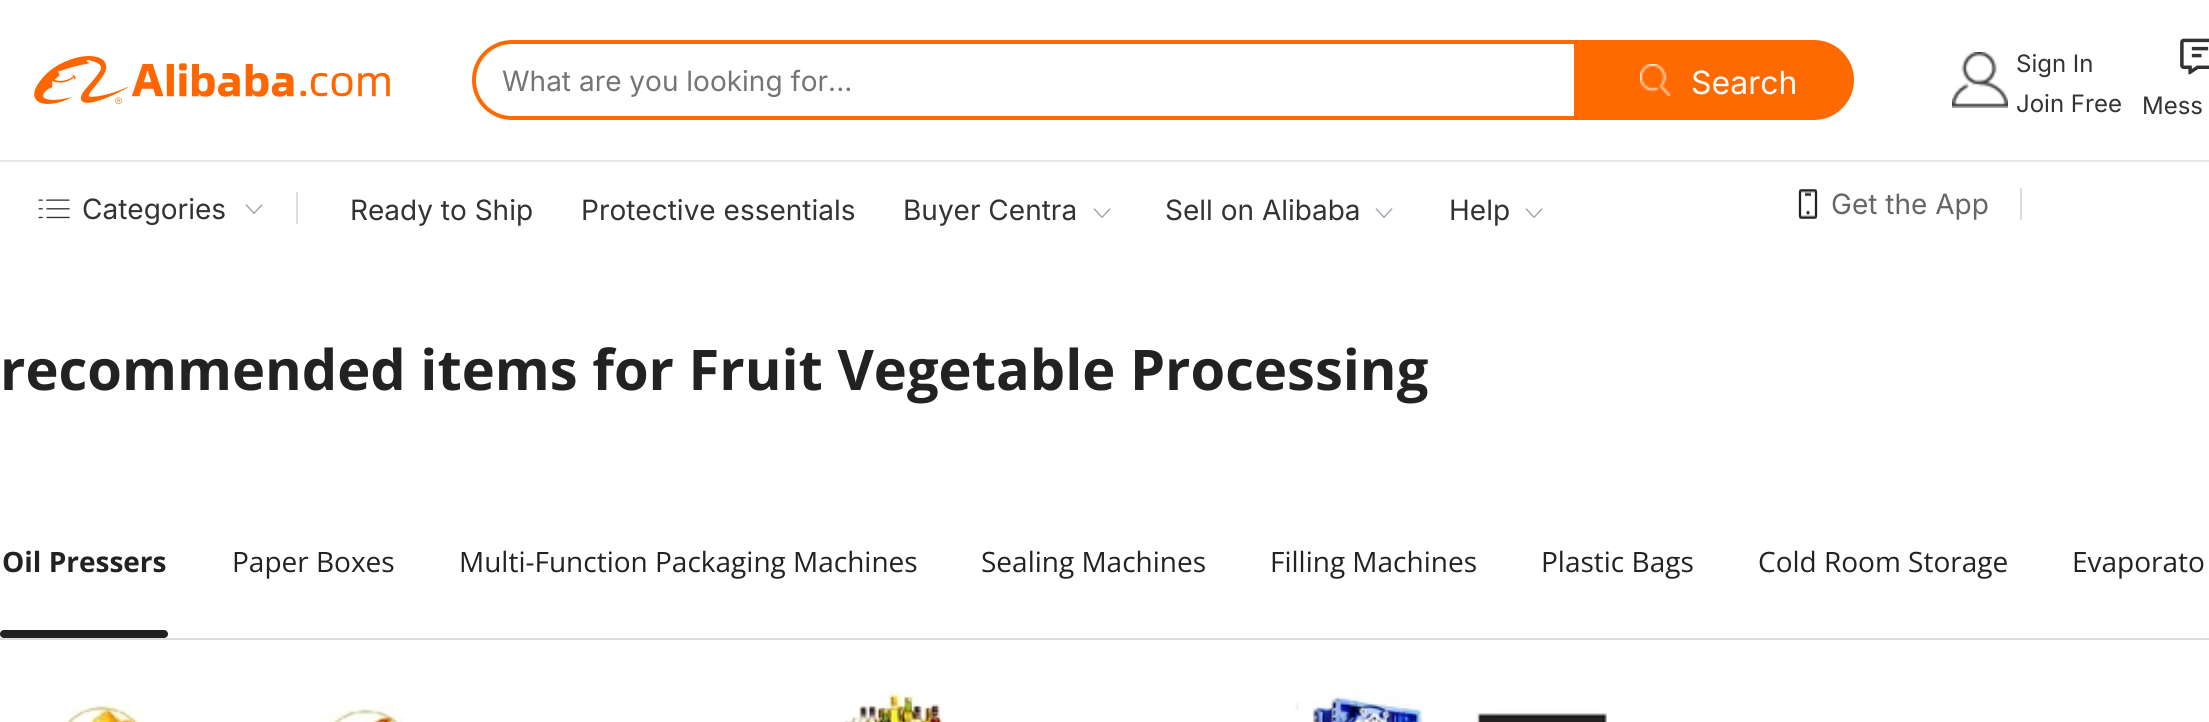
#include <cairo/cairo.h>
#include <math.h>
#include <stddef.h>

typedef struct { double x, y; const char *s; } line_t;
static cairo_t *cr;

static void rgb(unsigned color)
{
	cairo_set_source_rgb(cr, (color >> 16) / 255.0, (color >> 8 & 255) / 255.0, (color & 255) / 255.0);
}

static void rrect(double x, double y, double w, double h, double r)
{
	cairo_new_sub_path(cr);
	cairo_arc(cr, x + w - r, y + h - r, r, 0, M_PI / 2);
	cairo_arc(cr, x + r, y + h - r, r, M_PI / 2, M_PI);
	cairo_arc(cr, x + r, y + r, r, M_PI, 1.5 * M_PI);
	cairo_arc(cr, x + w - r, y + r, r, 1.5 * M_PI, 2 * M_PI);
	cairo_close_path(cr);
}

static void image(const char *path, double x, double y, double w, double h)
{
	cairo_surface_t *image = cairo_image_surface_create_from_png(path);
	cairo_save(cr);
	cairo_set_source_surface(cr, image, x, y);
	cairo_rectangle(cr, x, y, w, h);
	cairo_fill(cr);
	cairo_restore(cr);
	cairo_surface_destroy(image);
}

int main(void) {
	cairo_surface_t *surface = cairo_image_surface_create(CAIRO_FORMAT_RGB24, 2209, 722);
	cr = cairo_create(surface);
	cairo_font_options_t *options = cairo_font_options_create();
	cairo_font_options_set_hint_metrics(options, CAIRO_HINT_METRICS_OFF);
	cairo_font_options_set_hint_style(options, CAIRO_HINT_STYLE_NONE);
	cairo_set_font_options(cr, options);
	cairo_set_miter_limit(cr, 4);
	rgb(0xffffff);
	cairo_paint(cr);
	image("img/1.png", 34, 56, 356, 48);
	cairo_new_path(cr);
	cairo_move_to(cr, 512, 42);
	cairo_line_to(cr, 1578, 42);
	cairo_line_to(cr, 1578, 118);
	cairo_line_to(cr, 512, 118);
	cairo_curve_to(cr, 491, 118, 474, 101, 474, 80);
	cairo_curve_to(cr, 474, 59, 491, 42, 512, 42);
	cairo_close_path(cr);
	rgb(0xff6a00);
	cairo_set_line_width(cr, 4);
	cairo_stroke(cr);
	cairo_new_path(cr);
	cairo_move_to(cr, 1574, 40);
	cairo_line_to(cr, 1814, 40);
	cairo_curve_to(cr, 1836, 40, 1854, 58, 1854, 80);
	cairo_curve_to(cr, 1854, 102, 1836, 120, 1814, 120);
	cairo_line_to(cr, 1574, 120);
	cairo_close_path(cr);
	cairo_fill(cr);
	image("img/2.png", 1640, 64, 31, 32);
	image("img/3.png", 1952, 52, 56, 56);
	image("img/4.png", 2180, 38, 29, 37);
	rgb(0xe6e7eb);
	cairo_rectangle(cr, 0, 160, 2209, 2);
	cairo_fill(cr);
	image("img/5.png", 38, 199, 32, 20);
	image("img/6.png", 245, 204, 18, 10);
	rgb(0xdddee3);
	cairo_rectangle(cr, 296, 192, 2, 32);
	cairo_fill(cr);
	image("img/6.png", 1093, 208, 18, 10);
	image("img/6.png", 1375, 208, 18, 10);
	image("img/6.png", 1525, 208, 18, 10);
	image("img/7.png", 1798, 189, 20, 30);
	cairo_rectangle(cr, 2020, 188, 2, 32);
	cairo_fill(cr);
	rgb(0xdddddd);
	cairo_rectangle(cr, 0, 638, 2209, 2);
	cairo_fill(cr);
	rgb(0x222222);
	rrect(0, 630, 168, 8, 4);
	cairo_fill(cr);
	image("img/8.png", 65, 702, 342, 20);
	image("img/9.png", 843, 691, 103, 31);
	image("img/10.png", 1295, 688, 129, 34);
	image("img/11.png", 1474, 711, 133, 11);
	cairo_select_font_face(cr, "Inter", CAIRO_FONT_SLANT_NORMAL, CAIRO_FONT_WEIGHT_NORMAL);
	cairo_set_font_size(cr, 28);
	rgb(0x757575);
	cairo_move_to(cr, 502, 91);
	cairo_show_text(cr, "What are you looking for...");
	cairo_set_font_size(cr, 32);
	rgb(0xffffff);
	cairo_move_to(cr, 1691, 94);
	cairo_show_text(cr, "Search");
	cairo_set_font_size(cr, 24);
	rgb(0x333333);
	{
		static const line_t items[] = {
			{2016, 72, "Sign In"},
			{2016, 112, "Join Free"},
			{2142, 114, "Mess"},
		};
		for (size_t i = 0; i < sizeof items / sizeof *items; i++) {
			cairo_move_to(cr, items[i].x, items[i].y);
			cairo_show_text(cr, items[i].s);
		}
	}
	cairo_set_font_size(cr, 28);
	{
		static const line_t items[] = {
			{82, 219, "Categories"},
			{350, 220, "Ready to Ship"},
			{581, 220, "Protective essentials"},
			{903, 220, "Buyer Centra"},
			{1165, 220, "Sell on Alibaba"},
			{1449, 220, "Help"},
		};
		for (size_t i = 0; i < sizeof items / sizeof *items; i++) {
			cairo_move_to(cr, items[i].x, items[i].y);
			cairo_show_text(cr, items[i].s);
		}
	}
	rgb(0x666666);
	cairo_move_to(cr, 1831, 214);
	cairo_show_text(cr, "Get the App");
	cairo_select_font_face(cr, "Open Sans", CAIRO_FONT_SLANT_NORMAL, CAIRO_FONT_WEIGHT_BOLD);
	cairo_set_font_size(cr, 56);
	rgb(0x222222);
	cairo_move_to(cr, 0, 390);
	cairo_show_text(cr, "recommended items for Fruit Vegetable Processing");
	cairo_set_font_size(cr, 28);
	cairo_move_to(cr, 2, 572);
	cairo_show_text(cr, "Oil Pressers");
	cairo_select_font_face(cr, "Open Sans", CAIRO_FONT_SLANT_NORMAL, CAIRO_FONT_WEIGHT_NORMAL);
	{
		static const line_t items[] = {
			{232, 572, "Paper Boxes"},
			{459, 572, "Multi-Function Packaging Machines"},
			{981, 572, "Sealing Machines"},
			{1270, 572, "Filling Machines"},
			{1541, 572, "Plastic Bags"},
			{1758, 572, "Cold Room Storage"},
			{2072, 572, "Evaporato"},
		};
		for (size_t i = 0; i < sizeof items / sizeof *items; i++) {
			cairo_move_to(cr, items[i].x, items[i].y);
			cairo_show_text(cr, items[i].s);
		}
	}
	cairo_surface_write_to_png(surface, "page.png");
	cairo_font_options_destroy(options);
	cairo_destroy(cr);
	cairo_surface_destroy(surface);
	return 0;
}
